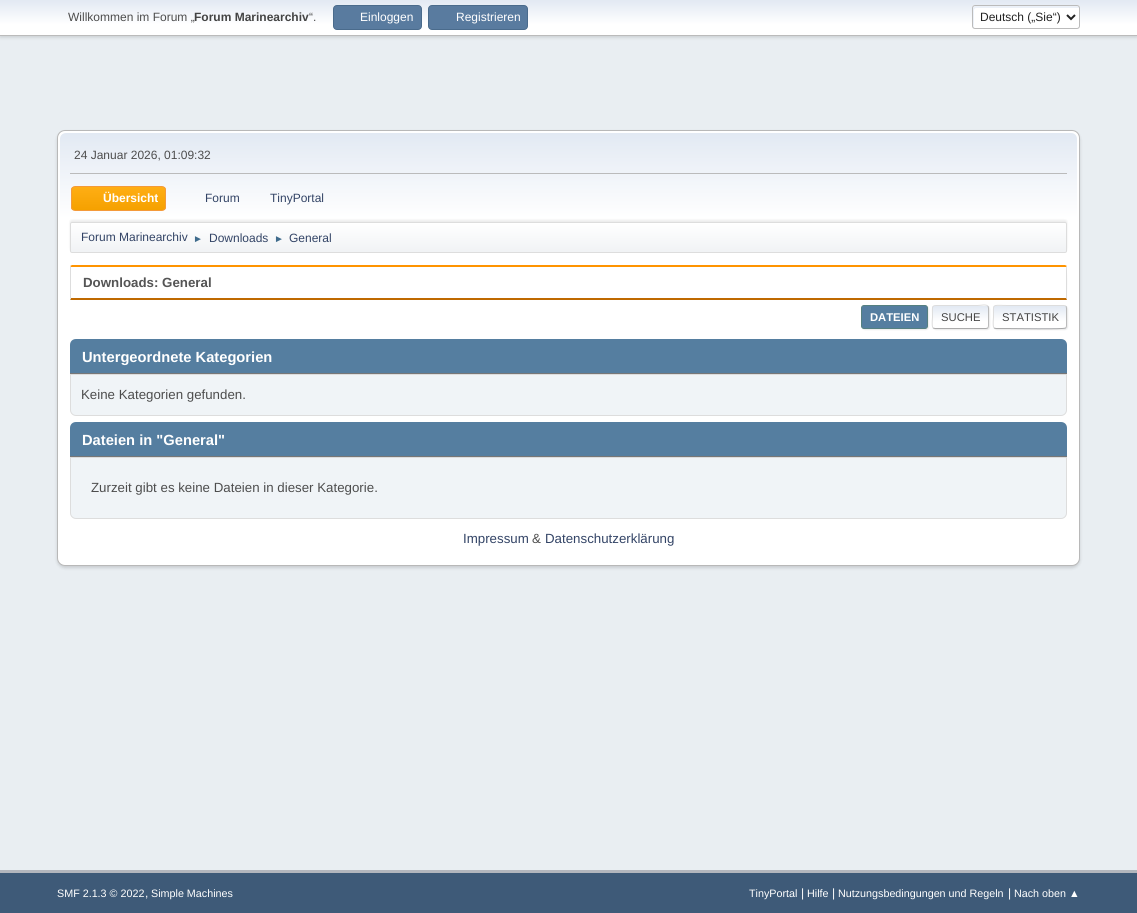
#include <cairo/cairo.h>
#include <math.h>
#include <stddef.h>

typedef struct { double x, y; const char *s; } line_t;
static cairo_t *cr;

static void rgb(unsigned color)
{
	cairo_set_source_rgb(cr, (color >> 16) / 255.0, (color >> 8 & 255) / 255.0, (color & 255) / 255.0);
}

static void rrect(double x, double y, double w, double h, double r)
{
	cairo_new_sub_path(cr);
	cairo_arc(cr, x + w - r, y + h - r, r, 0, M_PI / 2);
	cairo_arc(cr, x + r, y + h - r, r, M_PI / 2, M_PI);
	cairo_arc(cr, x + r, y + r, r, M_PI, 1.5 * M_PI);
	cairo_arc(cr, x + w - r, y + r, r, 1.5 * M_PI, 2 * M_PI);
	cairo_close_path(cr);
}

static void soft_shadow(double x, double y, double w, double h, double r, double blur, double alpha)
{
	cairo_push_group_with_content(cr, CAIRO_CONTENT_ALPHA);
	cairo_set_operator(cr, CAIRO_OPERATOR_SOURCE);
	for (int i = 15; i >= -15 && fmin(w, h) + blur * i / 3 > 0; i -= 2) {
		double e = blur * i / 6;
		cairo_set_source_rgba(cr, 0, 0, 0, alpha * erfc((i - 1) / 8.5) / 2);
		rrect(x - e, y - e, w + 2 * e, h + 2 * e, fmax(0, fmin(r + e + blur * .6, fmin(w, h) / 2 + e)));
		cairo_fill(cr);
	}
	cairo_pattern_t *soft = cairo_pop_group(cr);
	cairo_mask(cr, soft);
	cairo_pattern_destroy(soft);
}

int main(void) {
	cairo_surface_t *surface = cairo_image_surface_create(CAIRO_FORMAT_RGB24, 1137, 913);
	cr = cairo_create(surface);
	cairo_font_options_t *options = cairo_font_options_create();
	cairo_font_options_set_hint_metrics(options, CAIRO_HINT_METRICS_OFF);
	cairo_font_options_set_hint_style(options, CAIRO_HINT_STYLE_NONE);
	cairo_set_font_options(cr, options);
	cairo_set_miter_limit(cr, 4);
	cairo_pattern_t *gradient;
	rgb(0xe9eef2);
	cairo_paint(cr);
	rgb(0x000000);
	soft_shadow(0, 1, 1137, 36, 0, 2, 0.16);
	gradient = cairo_pattern_create_linear(569, 0, 569, 35);
	cairo_pattern_add_color_stop_rgba(gradient, 0, 0.886, 0.914, 0.953, 1);
	cairo_pattern_add_color_stop_rgba(gradient, 0.7, 1, 1, 1, 1);
	cairo_set_source(cr, gradient);
	cairo_pattern_destroy(gradient);
	cairo_rectangle(cr, 0, 0, 1137, 35);
	cairo_fill(cr);
	rgb(0xbbbbbb);
	cairo_rectangle(cr, 0, 35, 1137, 1);
	cairo_fill(cr);
	rgb(0x597b9f);
	rrect(333.5, 5.5, 88, 24, 3.5);
	cairo_fill_preserve(cr);
	rgb(0x4a6b8c);
	cairo_set_line_width(cr, 1);
	cairo_stroke(cr);
	rgb(0x597b9f);
	rrect(428.5, 5.5, 99, 24, 3.5);
	cairo_fill_preserve(cr);
	rgb(0x4a6b8c);
	cairo_stroke(cr);
	rgb(0xffffff);
	rrect(972, 5, 108, 24, 3);
	cairo_fill(cr);
	rgb(0xecf1f8);
	cairo_new_path(cr);
	cairo_move_to(cr, 976, 8);
	cairo_line_to(cr, 1079, 8);
	cairo_curve_to(cr, 1079, 7, 1079, 6, 1077, 6);
	cairo_line_to(cr, 975, 6);
	cairo_curve_to(cr, 974, 6, 973, 7, 973, 8);
	cairo_curve_to(cr, 973, 11, 972, 27, 974, 28);
	cairo_line_to(cr, 974, 10);
	cairo_curve_to(cr, 974, 9, 975, 8, 976, 8);
	cairo_close_path(cr);
	cairo_fill(cr);
	rrect(972.5, 5.5, 107, 23, 2.5);
	rgb(0xbbbbbb);
	cairo_stroke(cr);
	cairo_new_path(cr);
	cairo_move_to(cr, 1067, 15);
	cairo_line_to(cr, 1071, 19);
	cairo_line_to(cr, 1075, 15);
	rgb(0x222222);
	cairo_set_line_width(cr, 2);
	cairo_stroke(cr);
	rgb(0x000000);
	soft_shadow(57, 132, 1023, 436, 8, 1.5, 0.14);
	rgb(0xffffff);
	rrect(57.5, 130.5, 1022, 435, 7.5);
	cairo_fill_preserve(cr);
	rgb(0xb8b8b8);
	cairo_set_line_width(cr, 1);
	cairo_stroke(cr);
	gradient = cairo_pattern_create_linear(569, 133, 569, 255);
	cairo_pattern_add_color_stop_rgba(gradient, 0, 0.886, 0.914, 0.953, 1);
	cairo_pattern_add_color_stop_rgba(gradient, 0.7, 1, 1, 1, 1);
	cairo_set_source(cr, gradient);
	cairo_pattern_destroy(gradient);
	cairo_new_path(cr);
	cairo_move_to(cr, 66, 133);
	cairo_line_to(cr, 1071, 133);
	cairo_curve_to(cr, 1074.5, 133, 1077, 135.5, 1077, 139);
	cairo_line_to(cr, 1077, 255);
	cairo_line_to(cr, 60, 255);
	cairo_line_to(cr, 60, 139);
	cairo_curve_to(cr, 60, 135.5, 62.5, 133, 66, 133);
	cairo_close_path(cr);
	cairo_fill(cr);
	rgb(0xbbbbbb);
	cairo_rectangle(cr, 70, 173, 997, 1);
	cairo_fill(cr);
	cairo_save(cr);
	rrect(71, 186, 95, 25, 4);
	cairo_clip(cr);
	gradient = cairo_pattern_create_linear(119, 187, 119, 210);
	cairo_pattern_add_color_stop_rgba(gradient, 0, 1, 0.682, 0.078, 1);
	cairo_pattern_add_color_stop_rgba(gradient, 1, 0.961, 0.631, 0, 1);
	cairo_set_source(cr, gradient);
	cairo_pattern_destroy(gradient);
	cairo_rectangle(cr, 71, 187, 95, 23);
	cairo_fill(cr);
	cairo_restore(cr);
	rrect(71.5, 186.5, 94, 24, 3.5);
	rgb(0xf49a3a);
	cairo_stroke(cr);
	rgb(0x000000);
	soft_shadow(70, 220, 997, 31, 2, 1, 0.08);
	cairo_save(cr);
	rrect(70, 222, 997, 31, 2);
	cairo_clip(cr);
	gradient = cairo_pattern_create_linear(569, 223, 569, 252);
	cairo_pattern_add_color_stop_rgba(gradient, 0, 1, 1, 1, 1);
	cairo_pattern_add_color_stop_rgba(gradient, 0.95, 0.945, 0.953, 0.961, 1);
	cairo_set_source(cr, gradient);
	cairo_pattern_destroy(gradient);
	cairo_rectangle(cr, 70, 223, 997, 29);
	cairo_fill(cr);
	cairo_restore(cr);
	rrect(70.5, 222.5, 996, 30, 1.5);
	rgb(0xdddddd);
	cairo_stroke(cr);
	rgb(0xff9400);
	cairo_new_path(cr);
	cairo_move_to(cr, 72, 265);
	cairo_line_to(cr, 70, 266);
	cairo_line_to(cr, 71, 267);
	cairo_line_to(cr, 1066, 267);
	cairo_line_to(cr, 1067, 266);
	cairo_line_to(cr, 1065, 265);
	cairo_close_path(cr);
	cairo_fill(cr);
	rgb(0xdddddd);
	cairo_new_path(cr);
	cairo_move_to(cr, 1067, 300);
	cairo_curve_to(cr, 1067, 296, 1067.5, 267, 1066.5, 266);
	cairo_line_to(cr, 1066, 267);
	cairo_line_to(cr, 1066, 298);
	cairo_close_path(cr);
	cairo_fill(cr);
	rgb(0xbf6900);
	cairo_new_path(cr);
	cairo_move_to(cr, 1067, 300);
	cairo_line_to(cr, 1066, 298);
	cairo_line_to(cr, 71, 298);
	cairo_line_to(cr, 70, 300);
	cairo_close_path(cr);
	cairo_fill(cr);
	rgb(0xdddddd);
	cairo_new_path(cr);
	cairo_move_to(cr, 70, 300);
	cairo_line_to(cr, 71, 298);
	cairo_line_to(cr, 71, 267);
	cairo_line_to(cr, 70.5, 266);
	cairo_line_to(cr, 70, 267);
	cairo_close_path(cr);
	cairo_fill(cr);
	rgb(0xdddddd);
	soft_shadow(862, 306, 67, 24, 3, 0.5, 0.57);
	rgb(0x557ea0);
	rrect(861.5, 305.5, 66, 23, 2.5);
	cairo_fill_preserve(cr);
	rgb(0x558080);
	cairo_stroke(cr);
	rgb(0xdddddd);
	soft_shadow(933, 306, 57, 24, 3, 0.5, 0.57);
	rgb(0xffffff);
	rrect(932, 305, 57, 24, 3);
	cairo_fill(cr);
	cairo_save(cr);
	rrect(932, 305, 57, 24, 3);
	cairo_clip(cr);
	gradient = cairo_pattern_create_linear(961, 306, 961, 328);
	cairo_pattern_add_color_stop_rgba(gradient, 0, 0.886, 0.914, 0.953, 1);
	cairo_pattern_add_color_stop_rgba(gradient, 0.7, 1, 1, 1, 1);
	cairo_set_source(cr, gradient);
	cairo_pattern_destroy(gradient);
	cairo_rectangle(cr, 932, 306, 57, 22);
	cairo_fill(cr);
	cairo_restore(cr);
	cairo_new_path(cr);
	cairo_move_to(cr, 988, 306);
	cairo_curve_to(cr, 988, 306.5, 988.5, 307.5, 988.5, 308);
	cairo_line_to(cr, 988.5, 326);
	cairo_curve_to(cr, 988.5, 326.5, 988, 327.5, 988, 328);
	rgb(0xbbbbbb);
	cairo_stroke(cr);
	cairo_new_path(cr);
	cairo_move_to(cr, 988, 328);
	cairo_line_to(cr, 986, 328.5);
	cairo_line_to(cr, 935, 328.5);
	cairo_line_to(cr, 933, 328);
	rgb(0xaaaaaa);
	cairo_stroke(cr);
	cairo_new_path(cr);
	cairo_move_to(cr, 933, 328);
	cairo_curve_to(cr, 931.5, 326, 932.5, 319, 932.5, 317);
	cairo_curve_to(cr, 932.5, 304, 930.5, 305.5, 943.5, 305.5);
	cairo_line_to(cr, 977.5, 305.5);
	cairo_curve_to(cr, 981, 305.5, 985.5, 304, 988, 306);
	rgb(0xdddddd);
	cairo_stroke(cr);
	cairo_save(cr);
	cairo_set_fill_rule(cr, CAIRO_FILL_RULE_EVEN_ODD);
	cairo_new_path(cr);
	cairo_move_to(cr, 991, 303);
	cairo_line_to(cr, 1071, 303);
	cairo_line_to(cr, 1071, 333);
	cairo_line_to(cr, 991, 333);
	cairo_close_path(cr);
	cairo_move_to(cr, 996, 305);
	cairo_line_to(cr, 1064, 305);
	cairo_curve_to(cr, 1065.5, 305, 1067, 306.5, 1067, 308);
	cairo_line_to(cr, 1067, 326);
	cairo_curve_to(cr, 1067, 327.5, 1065.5, 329, 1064, 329);
	cairo_line_to(cr, 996, 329);
	cairo_curve_to(cr, 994.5, 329, 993, 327.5, 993, 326);
	cairo_line_to(cr, 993, 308);
	cairo_curve_to(cr, 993, 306.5, 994.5, 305, 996, 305);
	cairo_close_path(cr);
	cairo_clip(cr);
	rgb(0xdddddd);
	soft_shadow(994, 306, 74, 24, 3, 0.5, 0.57);
	cairo_restore(cr);
	cairo_save(cr);
	rrect(993, 305, 74, 24, 3);
	cairo_clip(cr);
	gradient = cairo_pattern_create_linear(1030, 306, 1030, 328);
	cairo_pattern_add_color_stop_rgba(gradient, 0, 0.886, 0.914, 0.953, 1);
	cairo_pattern_add_color_stop_rgba(gradient, 0.7, 1, 1, 1, 1);
	cairo_set_source(cr, gradient);
	cairo_pattern_destroy(gradient);
	cairo_rectangle(cr, 993, 306, 74, 22);
	cairo_fill(cr);
	gradient = cairo_pattern_create_linear(1030, 328, 1030, 350);
	cairo_pattern_add_color_stop_rgba(gradient, 0, 0.886, 0.914, 0.953, 1);
	cairo_pattern_add_color_stop_rgba(gradient, 0.7, 1, 1, 1, 1);
	cairo_set_source(cr, gradient);
	cairo_pattern_destroy(gradient);
	cairo_rectangle(cr, 993, 328, 74, 1);
	cairo_fill(cr);
	cairo_restore(cr);
	cairo_new_path(cr);
	cairo_move_to(cr, 1066, 306);
	cairo_curve_to(cr, 1066, 306.5, 1066.5, 307.5, 1066.5, 308);
	cairo_line_to(cr, 1066.5, 326);
	cairo_curve_to(cr, 1066.5, 326.5, 1066, 327.5, 1066, 328);
	rgb(0xbbbbbb);
	cairo_stroke(cr);
	cairo_new_path(cr);
	cairo_move_to(cr, 1066, 328);
	cairo_line_to(cr, 1065.5, 328);
	cairo_curve_to(cr, 1063.5, 329.5, 1014, 328.5, 1007.5, 328.5);
	cairo_line_to(cr, 996, 328.5);
	cairo_line_to(cr, 994, 328);
	rgb(0xaaaaaa);
	cairo_stroke(cr);
	cairo_new_path(cr);
	cairo_move_to(cr, 994, 328);
	cairo_curve_to(cr, 992.5, 326, 993.5, 319, 993.5, 317);
	cairo_curve_to(cr, 993.5, 303, 991.5, 305.5, 1007.5, 305.5);
	cairo_line_to(cr, 1064, 305.5);
	cairo_line_to(cr, 1066, 306);
	rgb(0xdddddd);
	cairo_stroke(cr);
	rgb(0x557ea0);
	cairo_new_path(cr);
	cairo_move_to(cr, 76, 339);
	cairo_line_to(cr, 1061, 339);
	cairo_curve_to(cr, 1064.5, 339, 1067, 341.5, 1067, 345);
	cairo_line_to(cr, 1067, 374);
	cairo_line_to(cr, 70, 374);
	cairo_line_to(cr, 70, 345);
	cairo_curve_to(cr, 70, 341.5, 72.5, 339, 76, 339);
	cairo_close_path(cr);
	cairo_fill(cr);
	rgb(0x777777);
	cairo_rectangle(cr, 70, 373, 997, 1);
	cairo_fill(cr);
	rgb(0xf0f4f7);
	cairo_new_path(cr);
	cairo_move_to(cr, 70.5, 374.5);
	cairo_line_to(cr, 1066.5, 374.5);
	cairo_line_to(cr, 1066.5, 410);
	cairo_curve_to(cr, 1066.5, 413, 1064, 415.5, 1061, 415.5);
	cairo_line_to(cr, 76, 415.5);
	cairo_curve_to(cr, 73, 415.5, 70.5, 413, 70.5, 410);
	cairo_close_path(cr);
	cairo_fill_preserve(cr);
	rgb(0xdddddd);
	cairo_stroke(cr);
	rgb(0x557ea0);
	cairo_new_path(cr);
	cairo_move_to(cr, 76, 422);
	cairo_line_to(cr, 1061, 422);
	cairo_curve_to(cr, 1064.5, 422, 1067, 424.5, 1067, 428);
	cairo_line_to(cr, 1067, 457);
	cairo_line_to(cr, 70, 457);
	cairo_line_to(cr, 70, 428);
	cairo_curve_to(cr, 70, 424.5, 72.5, 422, 76, 422);
	cairo_close_path(cr);
	cairo_fill(cr);
	rgb(0x777777);
	cairo_rectangle(cr, 70, 456, 997, 1);
	cairo_fill(cr);
	rgb(0xf0f4f7);
	cairo_new_path(cr);
	cairo_move_to(cr, 70.5, 457.5);
	cairo_line_to(cr, 1066.5, 457.5);
	cairo_line_to(cr, 1066.5, 513);
	cairo_curve_to(cr, 1066.5, 516, 1064, 518.5, 1061, 518.5);
	cairo_line_to(cr, 76, 518.5);
	cairo_curve_to(cr, 73, 518.5, 70.5, 516, 70.5, 513);
	cairo_close_path(cr);
	cairo_fill_preserve(cr);
	rgb(0xdddddd);
	cairo_stroke(cr);
	rgb(0x3e5a78);
	cairo_rectangle(cr, 0, 873, 1137, 40);
	cairo_fill(cr);
	rgb(0xb2b6bd);
	cairo_rectangle(cr, 0, 870, 1137, 3);
	cairo_fill(cr);
	cairo_select_font_face(cr, "Liberation Sans", CAIRO_FONT_SLANT_NORMAL, CAIRO_FONT_WEIGHT_NORMAL);
	cairo_set_font_size(cr, 12);
	rgb(0x4d4d4d);
	cairo_move_to(cr, 68, 21);
	cairo_show_text(cr, "Willkommen im Forum „");
	cairo_select_font_face(cr, "Liberation Sans", CAIRO_FONT_SLANT_NORMAL, CAIRO_FONT_WEIGHT_BOLD);
	rgb(0x444444);
	cairo_move_to(cr, 194, 21);
	cairo_show_text(cr, "Forum Marinearchiv");
	cairo_select_font_face(cr, "Liberation Sans", CAIRO_FONT_SLANT_NORMAL, CAIRO_FONT_WEIGHT_NORMAL);
	rgb(0x4d4d4d);
	cairo_move_to(cr, 309, 21);
	cairo_show_text(cr, "“.");
	rgb(0xffffff);
	cairo_move_to(cr, 360, 21);
	cairo_show_text(cr, "Einloggen");
	cairo_move_to(cr, 456, 21);
	cairo_show_text(cr, "Registrieren");
	rgb(0x222222);
	cairo_move_to(cr, 980, 21);
	cairo_show_text(cr, "Deutsch („Sie“)");
	rgb(0x4d4d4d);
	cairo_move_to(cr, 74, 159);
	cairo_show_text(cr, "24 Januar 2026, 01:09:32");
	cairo_select_font_face(cr, "Liberation Sans", CAIRO_FONT_SLANT_NORMAL, CAIRO_FONT_WEIGHT_BOLD);
	rgb(0xffffff);
	cairo_move_to(cr, 103, 202);
	cairo_show_text(cr, "Übersicht");
	cairo_select_font_face(cr, "Liberation Sans", CAIRO_FONT_SLANT_NORMAL, CAIRO_FONT_WEIGHT_NORMAL);
	rgb(0x334466);
	{
		static const line_t items[] = {
			{205, 202, "Forum"},
			{270, 202, "TinyPortal"},
			{81, 241, "Forum Marinearchiv"},
		};
		for (size_t i = 0; i < sizeof items / sizeof *items; i++) {
			cairo_move_to(cr, items[i].x, items[i].y);
			cairo_show_text(cr, items[i].s);
		}
	}
	cairo_set_font_size(cr, 10);
	rgb(0x3f6b8c);
	cairo_move_to(cr, 193, 242);
	cairo_show_text(cr, "►");
	cairo_set_font_size(cr, 12);
	rgb(0x334466);
	cairo_move_to(cr, 209, 242);
	cairo_show_text(cr, "Downloads");
	cairo_set_font_size(cr, 10);
	rgb(0x3f6b8c);
	cairo_move_to(cr, 274, 242);
	cairo_show_text(cr, "►");
	cairo_set_font_size(cr, 12);
	rgb(0x334466);
	cairo_move_to(cr, 289, 242);
	cairo_show_text(cr, "General");
	cairo_select_font_face(cr, "Liberation Sans", CAIRO_FONT_SLANT_NORMAL, CAIRO_FONT_WEIGHT_BOLD);
	cairo_set_font_size(cr, 13.3);
	rgb(0x555555);
	cairo_move_to(cr, 83, 287);
	cairo_show_text(cr, "Downloads: General");
	cairo_set_font_size(cr, 11.25);
	rgb(0xffffff);
	cairo_move_to(cr, 870, 321);
	cairo_show_text(cr, "DATEIEN");
	cairo_select_font_face(cr, "Liberation Sans", CAIRO_FONT_SLANT_NORMAL, CAIRO_FONT_WEIGHT_NORMAL);
	rgb(0x444444);
	cairo_move_to(cr, 941, 321);
	cairo_show_text(cr, "SUCHE");
	cairo_move_to(cr, 1002, 321);
	cairo_show_text(cr, "STATISTIK");
	cairo_select_font_face(cr, "Liberation Sans", CAIRO_FONT_SLANT_NORMAL, CAIRO_FONT_WEIGHT_BOLD);
	cairo_set_font_size(cr, 14.7);
	rgb(0xffffff);
	cairo_move_to(cr, 82, 362);
	cairo_show_text(cr, "Untergeordnete Kategorien");
	cairo_select_font_face(cr, "Liberation Sans", CAIRO_FONT_SLANT_NORMAL, CAIRO_FONT_WEIGHT_NORMAL);
	cairo_set_font_size(cr, 13.3);
	rgb(0x4d4d4d);
	cairo_move_to(cr, 81, 399);
	cairo_show_text(cr, "Keine Kategorien gefunden.");
	cairo_select_font_face(cr, "Liberation Sans", CAIRO_FONT_SLANT_NORMAL, CAIRO_FONT_WEIGHT_BOLD);
	cairo_set_font_size(cr, 14.7);
	rgb(0xffffff);
	cairo_move_to(cr, 82, 445);
	cairo_show_text(cr, "Dateien in \"General\"");
	cairo_select_font_face(cr, "Liberation Sans", CAIRO_FONT_SLANT_NORMAL, CAIRO_FONT_WEIGHT_NORMAL);
	cairo_set_font_size(cr, 13.3);
	rgb(0x4d4d4d);
	cairo_move_to(cr, 91, 492);
	cairo_show_text(cr, "Zurzeit gibt es keine Dateien in dieser Kategorie.");
	rgb(0x334466);
	cairo_move_to(cr, 463, 543);
	cairo_show_text(cr, "Impressum");
	rgb(0x4d4d4d);
	cairo_move_to(cr, 532, 543);
	cairo_show_text(cr, "&");
	rgb(0x334466);
	cairo_move_to(cr, 545, 543);
	cairo_show_text(cr, "Datenschutzerklärung");
	cairo_set_font_size(cr, 10.75);
	rgb(0xffffff);
	cairo_move_to(cr, 57, 897);
	cairo_show_text(cr, "SMF 2.1.3 © 2022");
	cairo_set_font_size(cr, 12);
	cairo_move_to(cr, 145, 897);
	cairo_show_text(cr, ",");
	cairo_set_font_size(cr, 10.75);
	cairo_move_to(cr, 151, 897);
	cairo_show_text(cr, "Simple Machines");
	cairo_move_to(cr, 749, 897);
	cairo_show_text(cr, "TinyPortal");
	cairo_set_font_size(cr, 12);
	cairo_move_to(cr, 801, 897);
	cairo_show_text(cr, "|");
	cairo_set_font_size(cr, 10.75);
	cairo_move_to(cr, 807, 897);
	cairo_show_text(cr, "Hilfe");
	cairo_set_font_size(cr, 12);
	cairo_move_to(cr, 832, 897);
	cairo_show_text(cr, "|");
	cairo_set_font_size(cr, 10.75);
	cairo_move_to(cr, 838, 897);
	cairo_show_text(cr, "Nutzungsbedingungen und Regeln");
	cairo_set_font_size(cr, 12);
	cairo_move_to(cr, 1008, 897);
	cairo_show_text(cr, "|");
	cairo_set_font_size(cr, 10.75);
	cairo_move_to(cr, 1014, 897);
	cairo_show_text(cr, "Nach oben ▲");
	cairo_surface_write_to_png(surface, "page.png");
	cairo_font_options_destroy(options);
	cairo_destroy(cr);
	cairo_surface_destroy(surface);
	return 0;
}
